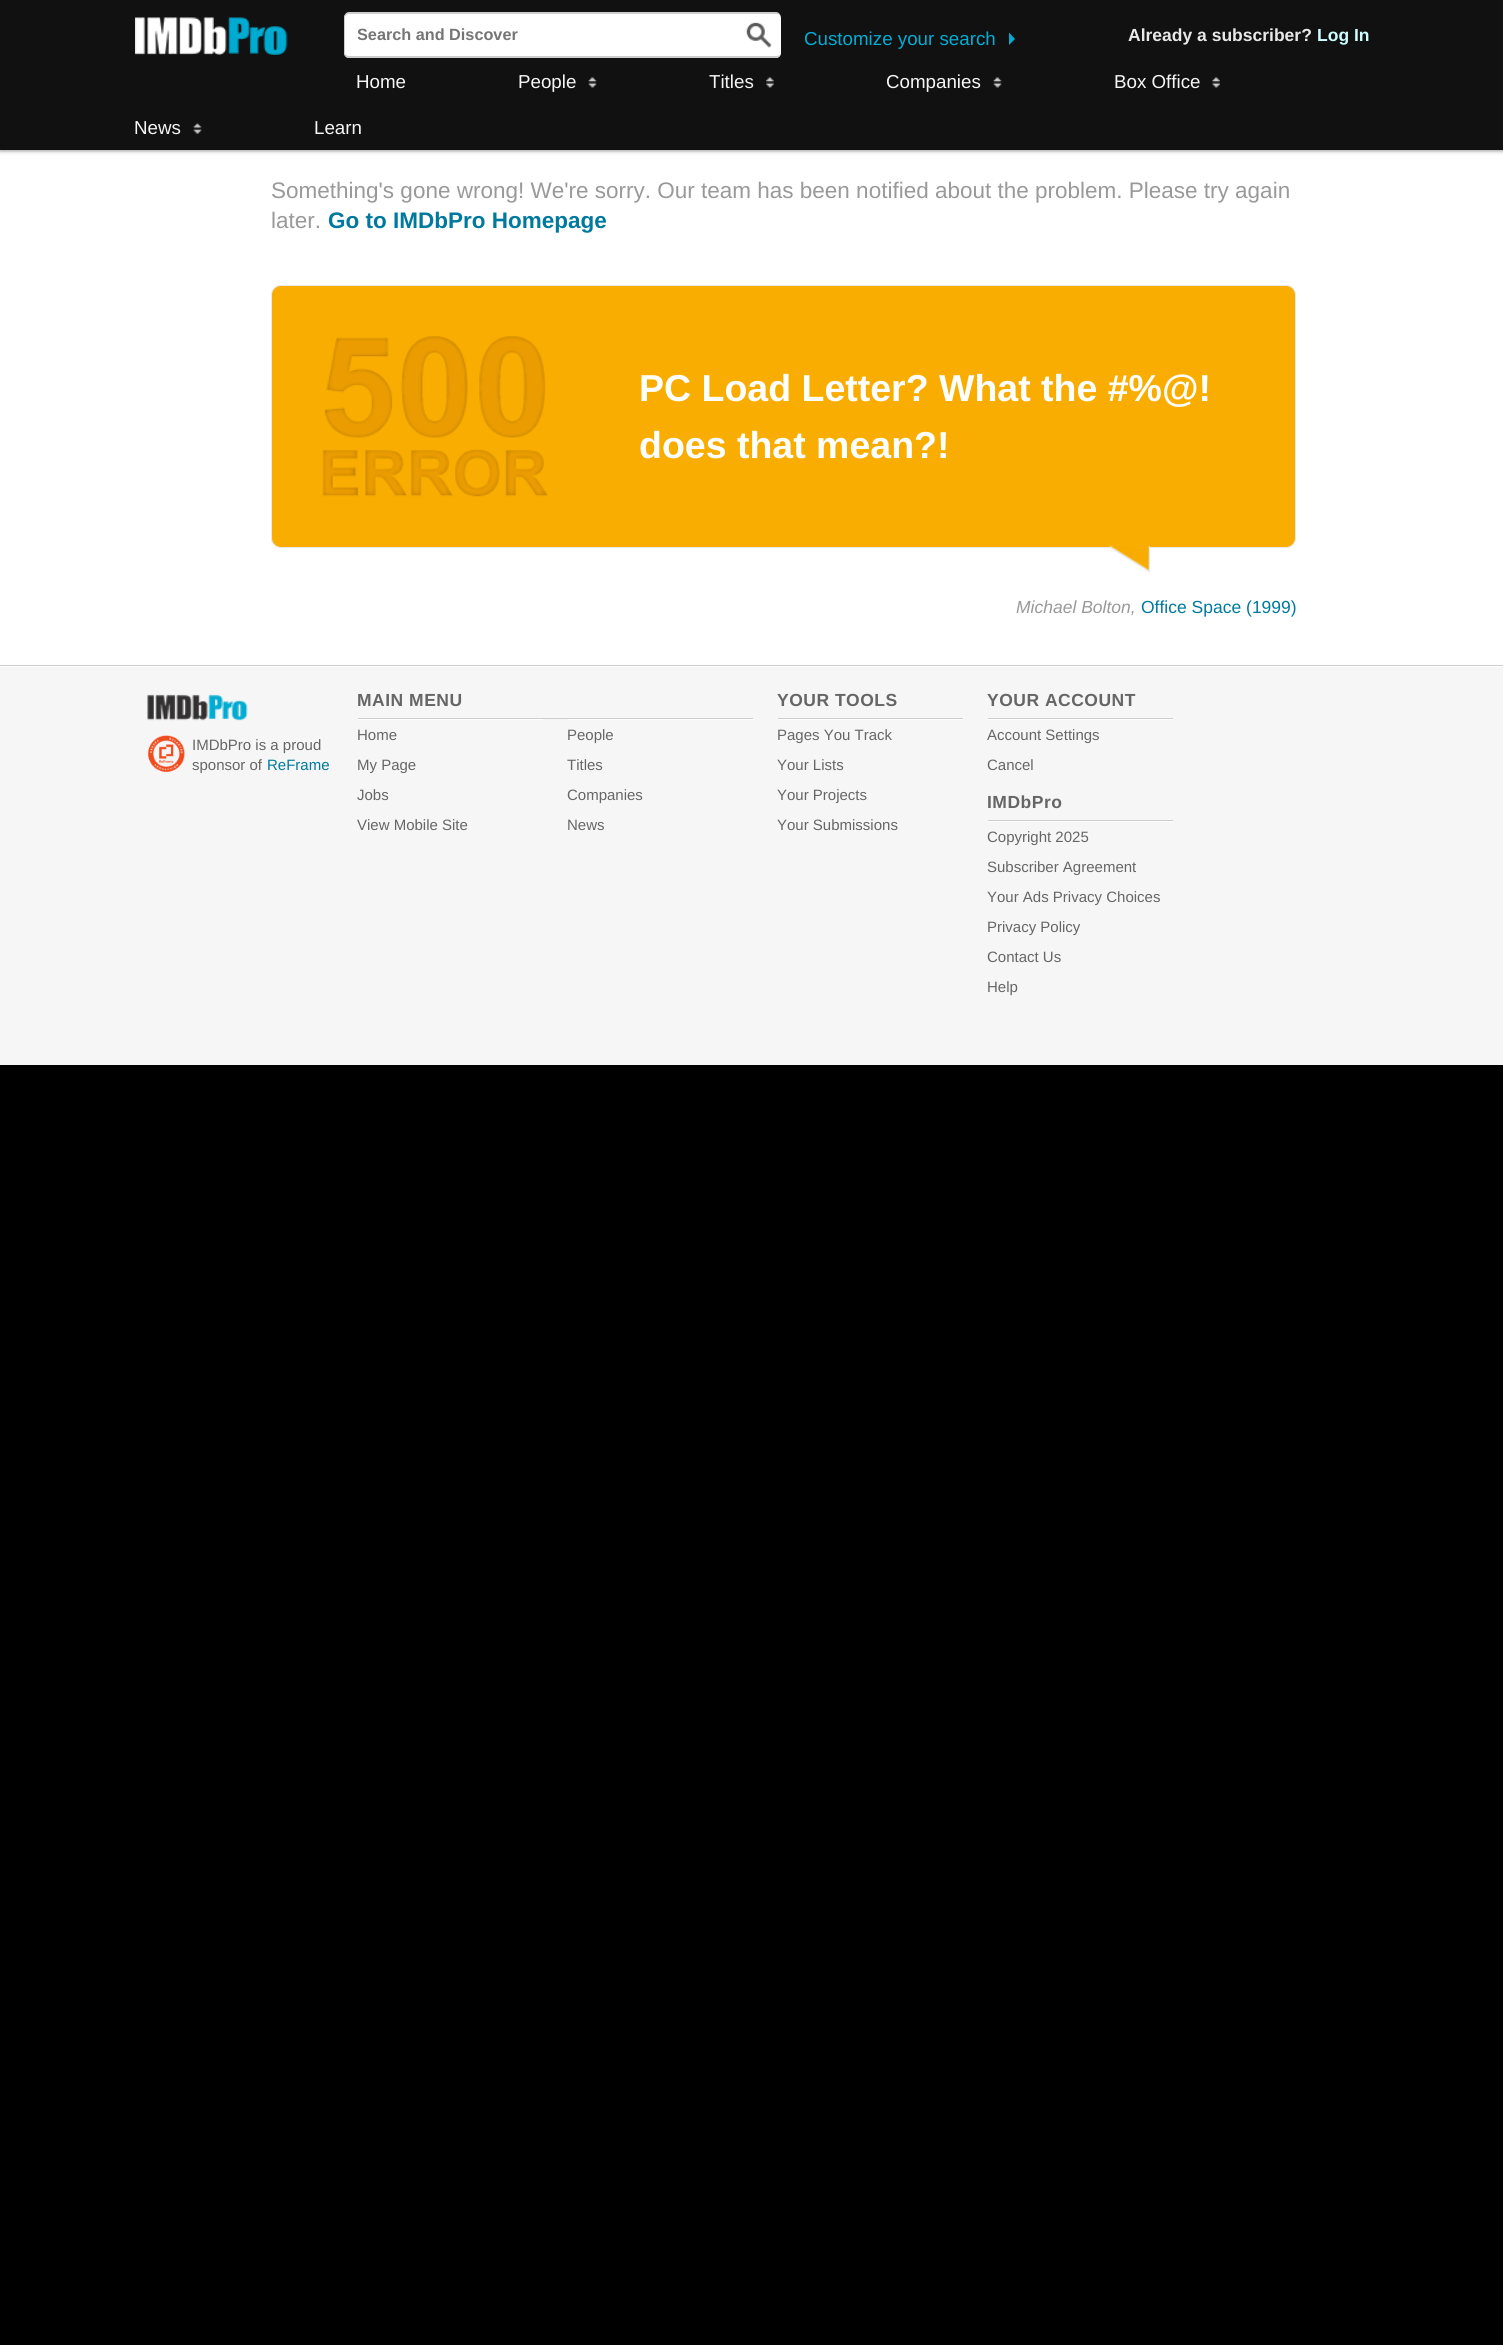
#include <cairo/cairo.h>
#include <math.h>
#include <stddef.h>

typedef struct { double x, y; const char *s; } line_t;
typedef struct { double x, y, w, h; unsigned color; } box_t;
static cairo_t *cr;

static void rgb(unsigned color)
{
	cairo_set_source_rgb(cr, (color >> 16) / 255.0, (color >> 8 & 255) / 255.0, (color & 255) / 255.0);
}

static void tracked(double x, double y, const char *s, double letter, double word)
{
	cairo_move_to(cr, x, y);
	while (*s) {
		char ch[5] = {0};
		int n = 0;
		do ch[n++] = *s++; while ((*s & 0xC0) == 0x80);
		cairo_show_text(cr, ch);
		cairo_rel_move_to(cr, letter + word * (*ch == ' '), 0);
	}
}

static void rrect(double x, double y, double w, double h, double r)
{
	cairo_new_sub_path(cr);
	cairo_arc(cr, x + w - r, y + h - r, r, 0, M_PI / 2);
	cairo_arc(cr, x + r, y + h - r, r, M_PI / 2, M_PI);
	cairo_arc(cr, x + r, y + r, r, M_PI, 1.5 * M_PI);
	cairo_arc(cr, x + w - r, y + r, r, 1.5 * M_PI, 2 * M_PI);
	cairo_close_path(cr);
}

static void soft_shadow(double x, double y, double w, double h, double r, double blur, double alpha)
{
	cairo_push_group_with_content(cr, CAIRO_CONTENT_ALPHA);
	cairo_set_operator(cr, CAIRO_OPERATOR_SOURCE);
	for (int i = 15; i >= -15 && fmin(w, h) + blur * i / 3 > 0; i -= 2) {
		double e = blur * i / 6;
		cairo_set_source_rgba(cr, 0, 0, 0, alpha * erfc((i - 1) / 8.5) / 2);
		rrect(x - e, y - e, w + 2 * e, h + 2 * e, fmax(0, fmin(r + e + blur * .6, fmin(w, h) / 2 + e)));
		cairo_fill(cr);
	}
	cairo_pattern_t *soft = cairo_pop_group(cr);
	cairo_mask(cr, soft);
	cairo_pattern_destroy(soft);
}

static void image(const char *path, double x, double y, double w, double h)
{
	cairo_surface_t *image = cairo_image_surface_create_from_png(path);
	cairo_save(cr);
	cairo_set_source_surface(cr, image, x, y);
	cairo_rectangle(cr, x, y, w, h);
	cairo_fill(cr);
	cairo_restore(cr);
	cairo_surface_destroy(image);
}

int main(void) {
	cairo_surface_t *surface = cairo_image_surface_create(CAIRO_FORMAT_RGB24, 1503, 2345);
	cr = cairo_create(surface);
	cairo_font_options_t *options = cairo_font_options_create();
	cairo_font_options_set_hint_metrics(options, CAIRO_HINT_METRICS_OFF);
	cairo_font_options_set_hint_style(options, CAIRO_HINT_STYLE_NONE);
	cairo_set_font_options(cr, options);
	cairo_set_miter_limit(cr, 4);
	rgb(0x000000);
	cairo_paint(cr);
	rgb(0xf6f6f6);
	cairo_rectangle(cr, 0, 667, 1503, 398);
	cairo_fill(cr);
	rgb(0xffffff);
	cairo_rectangle(cr, 0, 150, 1503, 515);
	cairo_fill(cr);
	rgb(0x999999);
	soft_shadow(0, 46, 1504, 105, 0, 2, 1);
	rgb(0x111111);
	cairo_rectangle(cr, 0, 0, 1503, 150);
	cairo_fill(cr);
	image("img/1.png", 135, 17, 153, 38);
	rgb(0xffffff);
	rrect(344, 13, 437, 45, 5);
	cairo_fill(cr);
	rgb(0xcdcdcd);
	cairo_set_fill_rule(cr, CAIRO_FILL_RULE_EVEN_ODD);
	cairo_new_path(cr);
	cairo_move_to(cr, 349, 12);
	cairo_line_to(cr, 776, 12);
	cairo_curve_to(cr, 779, 12, 781, 15, 781, 18);
	cairo_line_to(cr, 781, 52);
	cairo_curve_to(cr, 781, 55, 779, 58, 776, 58);
	cairo_line_to(cr, 349, 58);
	cairo_curve_to(cr, 346, 58, 344, 55, 344, 52);
	cairo_line_to(cr, 344, 18);
	cairo_curve_to(cr, 344, 15, 346, 12, 349, 12);
	cairo_close_path(cr);
	cairo_move_to(cr, 349, 14);
	cairo_line_to(cr, 776, 14);
	cairo_curve_to(cr, 779, 14, 781, 15, 781, 18);
	cairo_line_to(cr, 781, 52);
	cairo_curve_to(cr, 781, 55, 779, 56, 776, 56);
	cairo_line_to(cr, 349, 56);
	cairo_curve_to(cr, 347, 56, 345, 55, 345, 52);
	cairo_line_to(cr, 345, 18);
	cairo_curve_to(cr, 345, 15, 347, 14, 349, 14);
	cairo_close_path(cr);
	cairo_fill(cr);
	image("img/2.png", 746, 22, 26, 26);
	rgb(0x07aad2);
	cairo_set_fill_rule(cr, CAIRO_FILL_RULE_WINDING);
	cairo_new_path(cr);
	cairo_move_to(cr, 1009, 45);
	cairo_line_to(cr, 1015, 39);
	cairo_line_to(cr, 1009, 32.5);
	cairo_close_path(cr);
	cairo_fill(cr);
	image("img/3.png", 588, 77, 9, 11);
	image("img/4.png", 766, 77, 8, 11);
	image("img/5.png", 993, 77, 9, 11);
	image("img/6.png", 1212, 77, 8, 11);
	image("img/7.png", 193, 123, 9, 11);
	rgb(0xf9ad00);
	rrect(271.5, 285.5, 1024, 262, 9.5);
	cairo_fill_preserve(cr);
	rgb(0xe8e8e8);
	cairo_set_line_width(cr, 1);
	cairo_stroke(cr);
	image("img/8.png", 322, 336, 226, 161);
	image("img/9.png", 1110, 546, 40, 27);
	rgb(0xffffff);
	cairo_rectangle(cr, 0, 666, 1503, 1);
	cairo_fill(cr);
	rgb(0xcdcdcd);
	cairo_rectangle(cr, 0, 665, 1503, 1);
	cairo_fill(cr);
	image("img/10.png", 147, 694, 101, 27);
	image("img/11.png", 147, 735, 38, 38);
	{
		static const box_t items[] = {
			{358, 718, 395, 1, 0xcdcdcd},
			{358, 719, 185, 1, 0xffffff},
			{568, 719, 185, 1, 0xffffff},
			{778, 718, 185, 1, 0xcdcdcd},
			{778, 719, 185, 1, 0xffffff},
			{988, 718, 185, 1, 0xcdcdcd},
			{988, 719, 185, 1, 0xffffff},
			{988, 820, 185, 1, 0xcdcdcd},
			{988, 821, 185, 1, 0xffffff},
		};
		for (size_t i = 0; i < sizeof items / sizeof *items; i++) {
			rgb(items[i].color);
			cairo_rectangle(cr, items[i].x, items[i].y, items[i].w, items[i].h);
			cairo_fill(cr);
		}
	}
	cairo_save(cr);
	cairo_rectangle(cr, 358, 25, 411, 19);
	cairo_clip(cr);
	cairo_select_font_face(cr, "Liberation Sans", CAIRO_FONT_SLANT_NORMAL, CAIRO_FONT_WEIGHT_BOLD);
	cairo_set_font_size(cr, 16.25);
	rgb(0x757575);
	cairo_move_to(cr, 357, 40);
	cairo_show_text(cr, "Search and Discover");
	cairo_restore(cr);
	cairo_select_font_face(cr, "Liberation Sans", CAIRO_FONT_SLANT_NORMAL, CAIRO_FONT_WEIGHT_NORMAL);
	cairo_set_font_size(cr, 18.75);
	rgb(0x02acd3);
	cairo_move_to(cr, 804, 45);
	cairo_show_text(cr, "Customize your search");
	cairo_select_font_face(cr, "Liberation Sans", CAIRO_FONT_SLANT_NORMAL, CAIRO_FONT_WEIGHT_BOLD);
	cairo_set_font_size(cr, 17.5);
	rgb(0xe8e8e8);
	cairo_move_to(cr, 1128, 41);
	cairo_show_text(cr, "Already a subscriber?");
	rgb(0xccfdff);
	cairo_move_to(cr, 1317, 41);
	cairo_show_text(cr, "Log In");
	cairo_select_font_face(cr, "Liberation Sans", CAIRO_FONT_SLANT_NORMAL, CAIRO_FONT_WEIGHT_NORMAL);
	cairo_set_font_size(cr, 18.75);
	rgb(0xf6f6f6);
	{
		static const line_t items[] = {
			{356, 88, "Home"},
			{518, 88, "People"},
			{709, 88, "Titles"},
			{886, 88, "Companies"},
			{1114, 88, "Box Office"},
			{134, 134, "News"},
			{314, 134, "Learn"},
		};
		for (size_t i = 0; i < sizeof items / sizeof *items; i++) {
			cairo_move_to(cr, items[i].x, items[i].y);
			cairo_show_text(cr, items[i].s);
		}
	}
	cairo_set_font_size(cr, 22.5);
	rgb(0x999999);
	cairo_move_to(cr, 271, 198);
	cairo_show_text(cr, "Something's gone wrong! We're sorry. Our team has been notified about the problem. Please try again");
	cairo_move_to(cr, 271, 228);
	cairo_show_text(cr, "later.");
	cairo_select_font_face(cr, "Liberation Sans", CAIRO_FONT_SLANT_NORMAL, CAIRO_FONT_WEIGHT_BOLD);
	rgb(0x00799e);
	cairo_move_to(cr, 328, 228);
	cairo_show_text(cr, "Go to IMDbPro Homepage");
	cairo_set_font_size(cr, 37.5);
	rgb(0xffffff);
	cairo_move_to(cr, 639, 401);
	cairo_show_text(cr, "PC Load Letter? What the #%@!");
	cairo_move_to(cr, 639, 458);
	cairo_show_text(cr, "does that mean?!");
	cairo_select_font_face(cr, "Liberation Sans", CAIRO_FONT_SLANT_ITALIC, CAIRO_FONT_WEIGHT_NORMAL);
	cairo_set_font_size(cr, 17.5);
	rgb(0x999999);
	cairo_move_to(cr, 1016, 613);
	cairo_show_text(cr, "Michael Bolton,");
	cairo_select_font_face(cr, "Liberation Sans", CAIRO_FONT_SLANT_NORMAL, CAIRO_FONT_WEIGHT_NORMAL);
	rgb(0x00799e);
	cairo_move_to(cr, 1141, 613);
	cairo_show_text(cr, "Office Space (1999)");
	cairo_set_font_size(cr, 15);
	rgb(0x666666);
	cairo_move_to(cr, 192, 750);
	cairo_show_text(cr, "IMDbPro is a proud");
	cairo_move_to(cr, 192, 770);
	cairo_show_text(cr, "sponsor of");
	rgb(0x00799e);
	cairo_move_to(cr, 267, 770);
	cairo_show_text(cr, "ReFrame");
	cairo_select_font_face(cr, "Liberation Sans", CAIRO_FONT_SLANT_NORMAL, CAIRO_FONT_WEIGHT_BOLD);
	cairo_set_font_size(cr, 17.5);
	rgb(0x666666);
	tracked(357, 706, "MAIN MENU", 0.5, 0);
	cairo_select_font_face(cr, "Liberation Sans", CAIRO_FONT_SLANT_NORMAL, CAIRO_FONT_WEIGHT_NORMAL);
	cairo_set_font_size(cr, 15);
	{
		static const line_t items[] = {
			{357, 740, "Home"},
			{357, 770, "My Page"},
			{357, 800, "Jobs"},
			{357, 830, "View Mobile Site"},
			{567, 740, "People"},
			{567, 770, "Titles"},
			{567, 800, "Companies"},
			{567, 830, "News"},
		};
		for (size_t i = 0; i < sizeof items / sizeof *items; i++) {
			cairo_move_to(cr, items[i].x, items[i].y);
			cairo_show_text(cr, items[i].s);
		}
	}
	cairo_select_font_face(cr, "Liberation Sans", CAIRO_FONT_SLANT_NORMAL, CAIRO_FONT_WEIGHT_BOLD);
	cairo_set_font_size(cr, 17.5);
	tracked(777, 706, "YOUR TOOLS", 0.5, 0);
	cairo_select_font_face(cr, "Liberation Sans", CAIRO_FONT_SLANT_NORMAL, CAIRO_FONT_WEIGHT_NORMAL);
	cairo_set_font_size(cr, 15);
	{
		static const line_t items[] = {
			{777, 740, "Pages You Track"},
			{777, 770, "Your Lists"},
			{777, 800, "Your Projects"},
			{777, 830, "Your Submissions"},
		};
		for (size_t i = 0; i < sizeof items / sizeof *items; i++) {
			cairo_move_to(cr, items[i].x, items[i].y);
			cairo_show_text(cr, items[i].s);
		}
	}
	cairo_select_font_face(cr, "Liberation Sans", CAIRO_FONT_SLANT_NORMAL, CAIRO_FONT_WEIGHT_BOLD);
	cairo_set_font_size(cr, 17.5);
	tracked(987, 706, "YOUR ACCOUNT", 0.5, 0);
	cairo_select_font_face(cr, "Liberation Sans", CAIRO_FONT_SLANT_NORMAL, CAIRO_FONT_WEIGHT_NORMAL);
	cairo_set_font_size(cr, 15);
	cairo_move_to(cr, 987, 740);
	cairo_show_text(cr, "Account Settings");
	cairo_move_to(cr, 987, 770);
	cairo_show_text(cr, "Cancel");
	cairo_select_font_face(cr, "Liberation Sans", CAIRO_FONT_SLANT_NORMAL, CAIRO_FONT_WEIGHT_BOLD);
	cairo_set_font_size(cr, 17.5);
	tracked(987, 808, "IMDbPro", 0.5, 0);
	cairo_select_font_face(cr, "Liberation Sans", CAIRO_FONT_SLANT_NORMAL, CAIRO_FONT_WEIGHT_NORMAL);
	cairo_set_font_size(cr, 15);
	{
		static const line_t items[] = {
			{987, 842, "Copyright 2025"},
			{987, 872, "Subscriber Agreement"},
			{987, 902, "Your Ads Privacy Choices"},
			{987, 932, "Privacy Policy"},
			{987, 962, "Contact Us"},
			{987, 992, "Help"},
		};
		for (size_t i = 0; i < sizeof items / sizeof *items; i++) {
			cairo_move_to(cr, items[i].x, items[i].y);
			cairo_show_text(cr, items[i].s);
		}
	}
	cairo_surface_write_to_png(surface, "page.png");
	cairo_font_options_destroy(options);
	cairo_destroy(cr);
	cairo_surface_destroy(surface);
	return 0;
}
